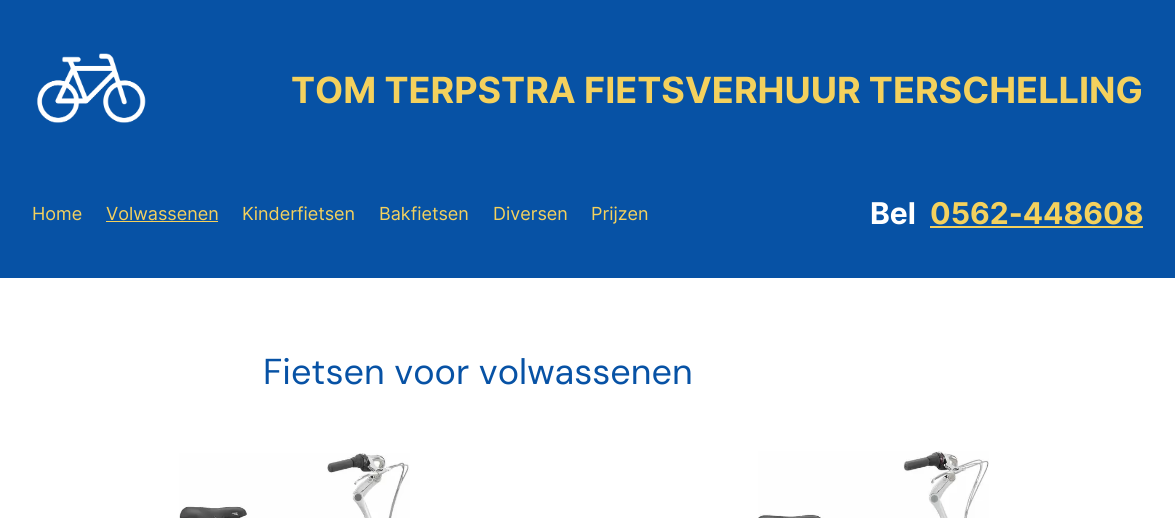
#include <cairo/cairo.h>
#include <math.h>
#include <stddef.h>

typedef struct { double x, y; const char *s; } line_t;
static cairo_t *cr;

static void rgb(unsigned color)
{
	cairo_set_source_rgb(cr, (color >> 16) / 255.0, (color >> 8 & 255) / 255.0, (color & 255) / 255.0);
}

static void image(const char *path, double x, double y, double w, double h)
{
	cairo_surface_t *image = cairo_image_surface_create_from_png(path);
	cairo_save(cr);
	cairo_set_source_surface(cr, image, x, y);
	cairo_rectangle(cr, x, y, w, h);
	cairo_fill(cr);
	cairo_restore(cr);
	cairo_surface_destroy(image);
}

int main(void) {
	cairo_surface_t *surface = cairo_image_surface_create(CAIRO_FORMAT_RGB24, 1175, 518);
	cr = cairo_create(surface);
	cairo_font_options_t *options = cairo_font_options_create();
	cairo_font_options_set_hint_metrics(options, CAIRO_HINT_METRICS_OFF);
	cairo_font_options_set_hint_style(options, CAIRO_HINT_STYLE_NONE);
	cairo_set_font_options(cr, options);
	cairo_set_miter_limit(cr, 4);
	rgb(0xffffff);
	cairo_paint(cr);
	rgb(0x0752a5);
	cairo_rectangle(cr, 0, 0, 1175, 278);
	cairo_fill(cr);
	image("img/1.png", 37, 53, 109, 70);
	rgb(0xf4d15d);
	cairo_rectangle(cr, 106, 221, 112, 1);
	cairo_fill(cr);
	cairo_rectangle(cr, 930, 226, 213, 2);
	cairo_fill(cr);
	image("img/2.png", 179, 453, 231, 65);
	image("img/3.png", 758, 451, 231, 67);
	cairo_select_font_face(cr, "Inter", CAIRO_FONT_SLANT_NORMAL, CAIRO_FONT_WEIGHT_BOLD);
	cairo_set_font_size(cr, 36);
	cairo_move_to(cr, 291, 103);
	cairo_show_text(cr, "TOM TERPSTRA FIETSVERHUUR TERSCHELLING");
	cairo_select_font_face(cr, "Inter", CAIRO_FONT_SLANT_NORMAL, CAIRO_FONT_WEIGHT_NORMAL);
	cairo_set_font_size(cr, 18);
	{
		static const line_t items[] = {
			{32, 220, "Home"},
			{106, 220, "Volwassenen"},
			{242, 220, "Kinderfietsen"},
			{379, 220, "Bakfietsen"},
			{493, 220, "Diversen"},
			{591, 220, "Prijzen"},
		};
		for (size_t i = 0; i < sizeof items / sizeof *items; i++) {
			cairo_move_to(cr, items[i].x, items[i].y);
			cairo_show_text(cr, items[i].s);
		}
	}
	cairo_select_font_face(cr, "Inter", CAIRO_FONT_SLANT_NORMAL, CAIRO_FONT_WEIGHT_BOLD);
	cairo_set_font_size(cr, 30);
	rgb(0xffffff);
	cairo_move_to(cr, 870, 224);
	cairo_show_text(cr, "Bel");
	rgb(0xf4d15d);
	cairo_move_to(cr, 930, 224);
	cairo_show_text(cr, "0562-448608");
	cairo_select_font_face(cr, "DM Sans", CAIRO_FONT_SLANT_NORMAL, CAIRO_FONT_WEIGHT_NORMAL);
	cairo_set_font_size(cr, 36);
	rgb(0x0752a5);
	cairo_move_to(cr, 263, 384);
	cairo_show_text(cr, "Fietsen voor volwassenen");
	cairo_surface_write_to_png(surface, "page.png");
	cairo_font_options_destroy(options);
	cairo_destroy(cr);
	cairo_surface_destroy(surface);
	return 0;
}
